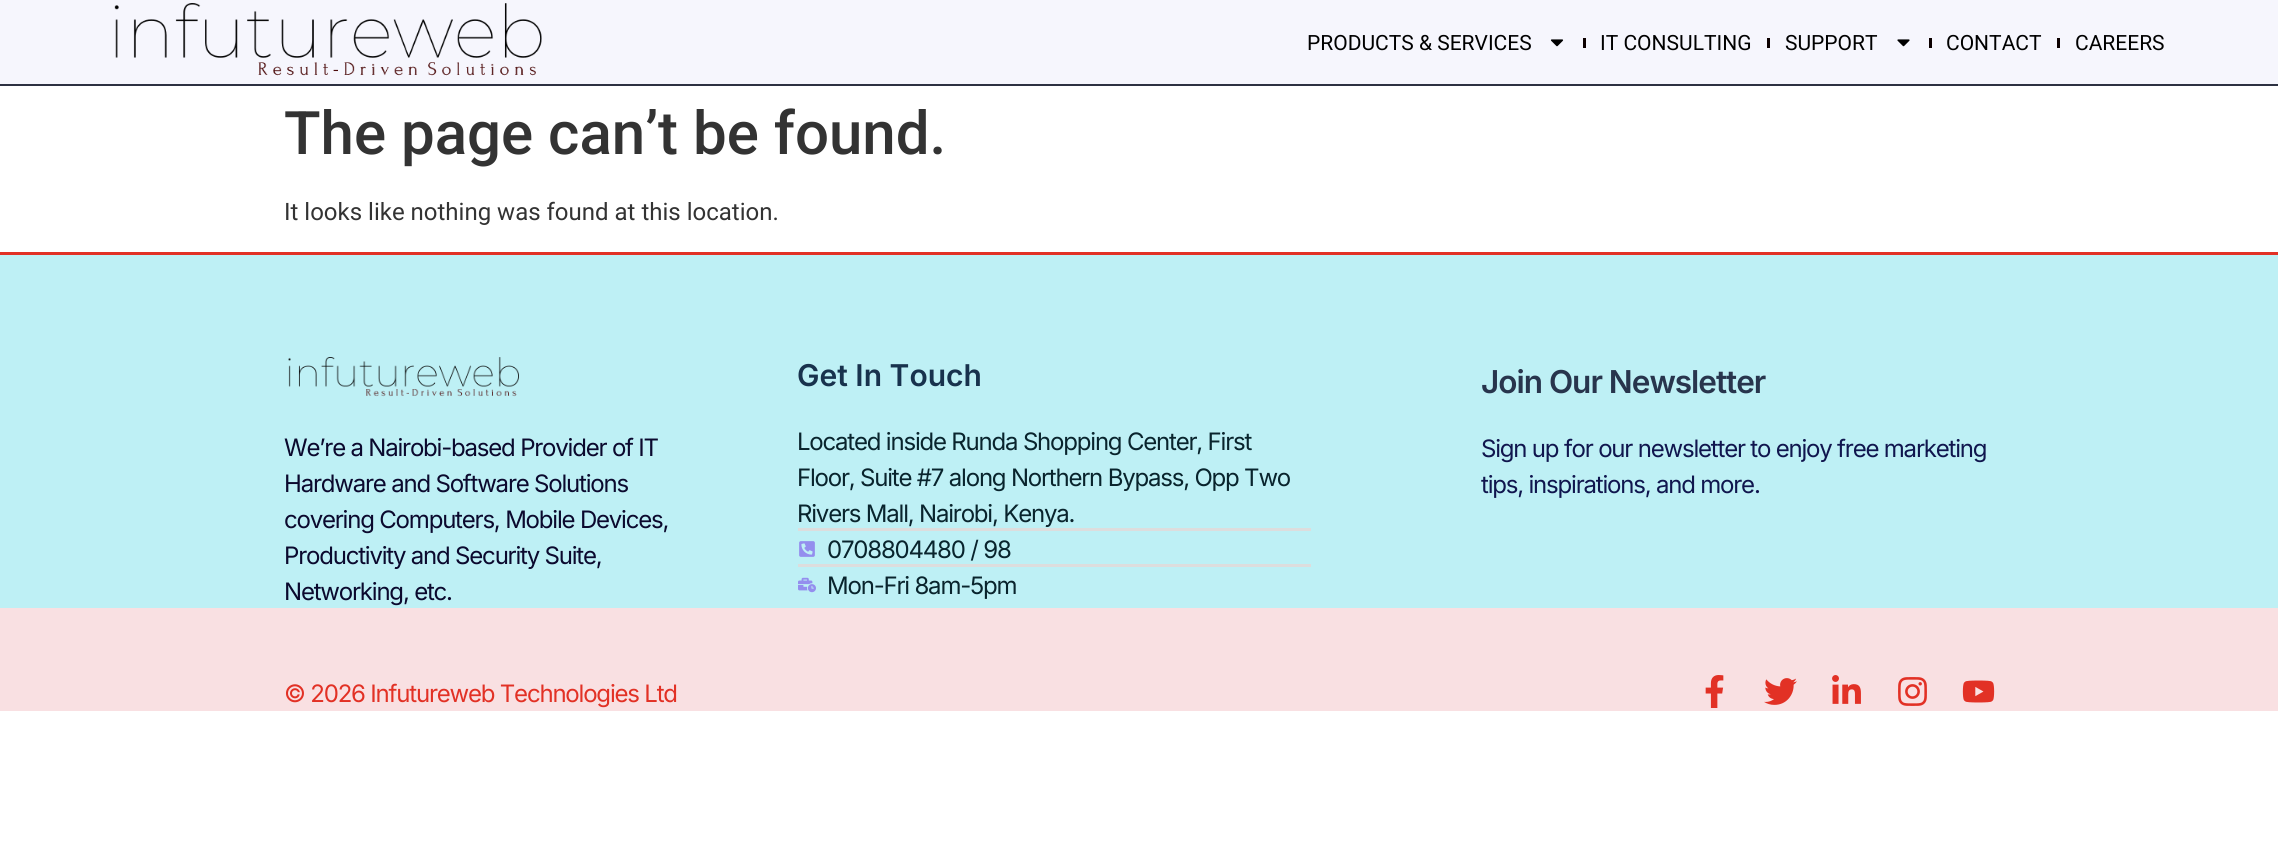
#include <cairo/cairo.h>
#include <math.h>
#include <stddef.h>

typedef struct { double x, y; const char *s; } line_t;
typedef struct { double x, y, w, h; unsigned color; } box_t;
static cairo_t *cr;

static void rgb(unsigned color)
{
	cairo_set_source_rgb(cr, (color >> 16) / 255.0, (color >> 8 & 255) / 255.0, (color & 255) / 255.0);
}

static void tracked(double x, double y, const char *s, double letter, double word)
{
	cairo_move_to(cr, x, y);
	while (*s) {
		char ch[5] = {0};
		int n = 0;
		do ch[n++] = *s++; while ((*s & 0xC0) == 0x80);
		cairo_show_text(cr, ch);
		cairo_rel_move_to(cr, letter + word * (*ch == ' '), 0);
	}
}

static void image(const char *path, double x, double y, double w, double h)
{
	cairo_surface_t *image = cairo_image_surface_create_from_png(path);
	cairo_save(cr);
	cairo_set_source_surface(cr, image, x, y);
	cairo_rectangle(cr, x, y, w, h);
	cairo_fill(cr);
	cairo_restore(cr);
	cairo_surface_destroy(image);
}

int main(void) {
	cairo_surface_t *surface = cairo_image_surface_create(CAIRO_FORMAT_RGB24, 2278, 861);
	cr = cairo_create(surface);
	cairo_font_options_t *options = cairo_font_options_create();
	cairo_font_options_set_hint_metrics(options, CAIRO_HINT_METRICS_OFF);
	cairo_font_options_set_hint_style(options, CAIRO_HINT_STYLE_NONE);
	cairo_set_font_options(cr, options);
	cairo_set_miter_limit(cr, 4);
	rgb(0xffffff);
	cairo_paint(cr);
	rgb(0xf6f6fd);
	cairo_rectangle(cr, 0, 0, 2278, 84);
	cairo_fill(cr);
	rgb(0x2d3142);
	cairo_rectangle(cr, 0, 84, 2278, 2);
	cairo_fill(cr);
	image("img/1.png", 114, 3, 428, 73);
	image("img/2.png", 1550, 39, 14, 8);
	rgb(0x0c0000);
	cairo_rectangle(cr, 1583, 38, 3, 10);
	cairo_fill(cr);
	cairo_rectangle(cr, 1767, 38, 3, 10);
	cairo_fill(cr);
	image("img/3.png", 1897, 39, 13, 8);
	{
		static const box_t items[] = {
			{1929, 38, 3, 10, 0x0c0000},
			{2057, 38, 3, 10, 0x0c0000},
			{0, 608, 2278, 103, 0xf9e0e2},
			{0, 255, 2278, 353, 0xbef0f5},
			{0, 252, 2278, 3, 0xe23125},
		};
		for (size_t i = 0; i < sizeof items / sizeof *items; i++) {
			rgb(items[i].color);
			cairo_rectangle(cr, items[i].x, items[i].y, items[i].w, items[i].h);
			cairo_fill(cr);
		}
	}
	image("img/4.png", 288, 357, 231, 40);
	rgb(0xdddddd);
	cairo_rectangle(cr, 798, 528, 513, 3);
	cairo_fill(cr);
	image("img/5.png", 799, 541, 16, 16);
	cairo_rectangle(cr, 798, 564, 513, 3);
	cairo_fill(cr);
	image("img/6.png", 798, 577, 18, 16);
	image("img/7.png", 1705, 675, 19, 33);
	image("img/8.png", 1764, 678, 33, 27);
	image("img/9.png", 1832, 675, 29, 29);
	image("img/10.png", 1898, 677, 29, 29);
	image("img/11.png", 1962, 680, 33, 23);
	cairo_select_font_face(cr, "Roboto", CAIRO_FONT_SLANT_NORMAL, CAIRO_FONT_WEIGHT_NORMAL);
	cairo_set_font_size(cr, 21);
	rgb(0x000000);
	{
		static const line_t items[] = {
			{1307, 50, "PRODUCTS & SERVICES"},
			{1600, 50, "IT CONSULTING"},
			{1785, 50, "SUPPORT"},
			{1946, 50, "CONTACT"},
			{2075, 50, "CAREERS"},
		};
		for (size_t i = 0; i < sizeof items / sizeof *items; i++) {
			cairo_move_to(cr, items[i].x, items[i].y);
			cairo_show_text(cr, items[i].s);
		}
	}
	cairo_select_font_face(cr, "Roboto Medium", CAIRO_FONT_SLANT_NORMAL, CAIRO_FONT_WEIGHT_NORMAL);
	cairo_set_font_size(cr, 60);
	rgb(0x333333);
	cairo_move_to(cr, 284, 154);
	cairo_show_text(cr, "The page can’t be found.");
	cairo_select_font_face(cr, "Roboto", CAIRO_FONT_SLANT_NORMAL, CAIRO_FONT_WEIGHT_NORMAL);
	cairo_set_font_size(cr, 24);
	cairo_move_to(cr, 284, 220);
	cairo_show_text(cr, "It looks like nothing was found at this location.");
	cairo_select_font_face(cr, "Inter", CAIRO_FONT_SLANT_NORMAL, CAIRO_FONT_WEIGHT_NORMAL);
	rgb(0x0b092e);
	{
		static const line_t items[] = {
			{284, 456, "We’re a Nairobi-based Provider of IT"},
			{284, 492, "Hardware and Software Solutions"},
			{284, 528, "covering Computers, Mobile Devices,"},
			{284, 564, "Productivity and Security Suite,"},
			{284, 600, "Networking, etc."},
		};
		for (size_t i = 0; i < sizeof items / sizeof *items; i++) {
			tracked(items[i].x, items[i].y, items[i].s, -1.2, 0);
		}
	}
	cairo_select_font_face(cr, "Inter SemiBold", CAIRO_FONT_SLANT_NORMAL, CAIRO_FONT_WEIGHT_NORMAL);
	cairo_set_font_size(cr, 30);
	rgb(0x18324d);
	cairo_move_to(cr, 797, 386);
	cairo_show_text(cr, "Get In Touch");
	cairo_select_font_face(cr, "Inter", CAIRO_FONT_SLANT_NORMAL, CAIRO_FONT_WEIGHT_NORMAL);
	cairo_set_font_size(cr, 24);
	rgb(0x09242d);
	{
		static const line_t items[] = {
			{797, 450, "Located inside Runda Shopping Center, First"},
			{797, 486, "Floor, Suite #7 along Northern Bypass, Opp Two"},
			{797, 522, "Rivers Mall, Nairobi, Kenya."},
			{827, 558, "0708804480 / 98"},
			{827, 594, "Mon-Fri 8am-5pm"},
		};
		for (size_t i = 0; i < sizeof items / sizeof *items; i++) {
			tracked(items[i].x, items[i].y, items[i].s, -1.2, 0);
		}
	}
	cairo_select_font_face(cr, "Inter SemiBold", CAIRO_FONT_SLANT_NORMAL, CAIRO_FONT_WEIGHT_NORMAL);
	cairo_set_font_size(cr, 31.5);
	rgb(0x28354d);
	tracked(1481, 393, "Join Our Newsletter", -1, 0);
	cairo_select_font_face(cr, "Inter", CAIRO_FONT_SLANT_NORMAL, CAIRO_FONT_WEIGHT_NORMAL);
	cairo_set_font_size(cr, 24);
	rgb(0x10164e);
	tracked(1481, 457, "Sign up for our newsletter to enjoy free marketing", -1.2, 0);
	tracked(1481, 493, "tips, inspirations, and more.", -1.2, 0);
	rgb(0xe23125);
	tracked(284, 702, "© 2026 Infutureweb Technologies Ltd", -1.2, 0);
	cairo_surface_write_to_png(surface, "page.png");
	cairo_font_options_destroy(options);
	cairo_destroy(cr);
	cairo_surface_destroy(surface);
	return 0;
}
